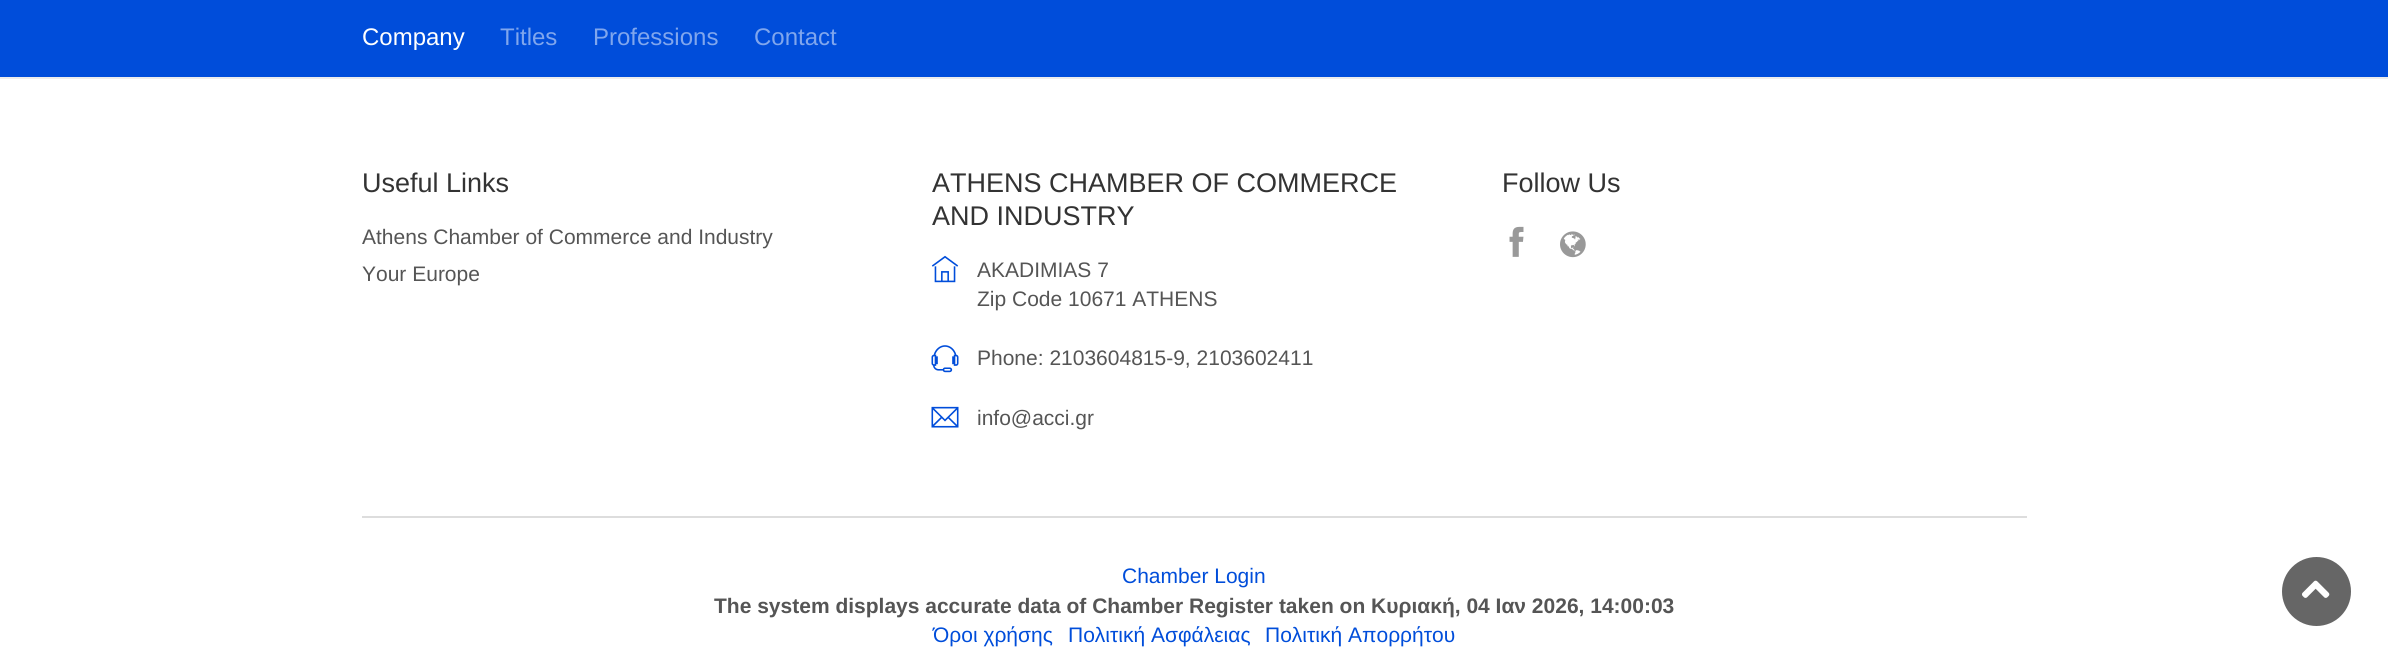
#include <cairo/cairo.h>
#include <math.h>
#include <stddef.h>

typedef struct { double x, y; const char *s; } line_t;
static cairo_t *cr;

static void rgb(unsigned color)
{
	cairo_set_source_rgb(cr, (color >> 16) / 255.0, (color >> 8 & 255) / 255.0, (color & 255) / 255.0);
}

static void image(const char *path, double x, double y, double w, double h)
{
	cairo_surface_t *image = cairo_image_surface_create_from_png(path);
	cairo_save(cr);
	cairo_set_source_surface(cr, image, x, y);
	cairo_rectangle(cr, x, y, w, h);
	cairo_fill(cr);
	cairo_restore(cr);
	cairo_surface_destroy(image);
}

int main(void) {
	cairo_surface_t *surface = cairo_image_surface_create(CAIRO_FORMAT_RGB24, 2388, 663);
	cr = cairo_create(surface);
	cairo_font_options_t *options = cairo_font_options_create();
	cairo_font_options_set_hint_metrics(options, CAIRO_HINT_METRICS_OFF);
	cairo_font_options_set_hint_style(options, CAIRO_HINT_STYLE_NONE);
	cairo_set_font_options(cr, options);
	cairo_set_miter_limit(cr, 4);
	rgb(0xffffff);
	cairo_paint(cr);
	rgb(0x004dda);
	cairo_rectangle(cr, 0, 0, 2388, 77);
	cairo_fill(cr);
	rgb(0xededed);
	cairo_rectangle(cr, 0, 77, 2388, 2);
	cairo_fill(cr);
	image("img/1.png", 931, 255, 28, 28);
	image("img/2.png", 931, 345, 28, 28);
	image("img/3.png", 931, 406, 28, 22);
	image("img/4.png", 1509, 226, 15, 31);
	image("img/5.png", 1560, 231, 26, 27);
	rgb(0xdddddd);
	cairo_rectangle(cr, 362, 516, 1665, 2);
	cairo_fill(cr);
	rgb(0x666666);
	cairo_arc(cr, 2316.5, 591.5, 34.5, 0, 2 * M_PI);
	cairo_fill(cr);
	image("img/6.png", 2302, 580, 28, 18);
	cairo_select_font_face(cr, "Liberation Sans", CAIRO_FONT_SLANT_NORMAL, CAIRO_FONT_WEIGHT_NORMAL);
	cairo_set_font_size(cr, 24);
	rgb(0xffffff);
	cairo_move_to(cr, 362, 45);
	cairo_show_text(cr, "Company");
	rgb(0x80a6ed);
	{
		static const line_t items[] = {
			{500, 45, "Titles"},
			{593, 45, "Professions"},
			{754, 45, "Contact"},
		};
		for (size_t i = 0; i < sizeof items / sizeof *items; i++) {
			cairo_move_to(cr, items[i].x, items[i].y);
			cairo_show_text(cr, items[i].s);
		}
	}
	cairo_set_font_size(cr, 27);
	rgb(0x333333);
	cairo_move_to(cr, 362, 192);
	cairo_show_text(cr, "Useful Links");
	cairo_set_font_size(cr, 21);
	rgb(0x555555);
	cairo_move_to(cr, 362, 244);
	cairo_show_text(cr, "Athens Chamber of Commerce and Industry");
	cairo_move_to(cr, 362, 281);
	cairo_show_text(cr, "Your Europe");
	cairo_set_font_size(cr, 27);
	rgb(0x333333);
	cairo_move_to(cr, 932, 192);
	cairo_show_text(cr, "ATHENS CHAMBER OF COMMERCE");
	cairo_move_to(cr, 932, 225);
	cairo_show_text(cr, "AND INDUSTRY");
	cairo_set_font_size(cr, 21);
	rgb(0x555555);
	{
		static const line_t items[] = {
			{977, 277, "AKADIMIAS 7"},
			{977, 306, "Zip Code 10671 ATHENS"},
			{977, 365, "Phone: 2103604815-9, 2103602411"},
			{977, 425, "info@acci.gr"},
		};
		for (size_t i = 0; i < sizeof items / sizeof *items; i++) {
			cairo_move_to(cr, items[i].x, items[i].y);
			cairo_show_text(cr, items[i].s);
		}
	}
	cairo_set_font_size(cr, 27);
	rgb(0x333333);
	cairo_move_to(cr, 1502, 192);
	cairo_show_text(cr, "Follow Us");
	cairo_set_font_size(cr, 21);
	rgb(0x004dda);
	cairo_move_to(cr, 1122, 583);
	cairo_show_text(cr, "Chamber Login");
	cairo_select_font_face(cr, "Liberation Sans", CAIRO_FONT_SLANT_NORMAL, CAIRO_FONT_WEIGHT_BOLD);
	rgb(0x555555);
	cairo_move_to(cr, 714, 613);
	cairo_show_text(cr, "The system displays accurate data of Chamber Register taken on Κυριακή, 04 Ιαν 2026, 14:00:03");
	cairo_select_font_face(cr, "Liberation Sans", CAIRO_FONT_SLANT_NORMAL, CAIRO_FONT_WEIGHT_NORMAL);
	rgb(0x004dda);
	{
		static const line_t items[] = {
			{933, 642, "Όροι χρήσης"},
			{1068, 642, "Πολιτική Ασφάλειας"},
			{1265, 642, "Πολιτική Απορρήτου"},
		};
		for (size_t i = 0; i < sizeof items / sizeof *items; i++) {
			cairo_move_to(cr, items[i].x, items[i].y);
			cairo_show_text(cr, items[i].s);
		}
	}
	cairo_surface_write_to_png(surface, "page.png");
	cairo_font_options_destroy(options);
	cairo_destroy(cr);
	cairo_surface_destroy(surface);
	return 0;
}
